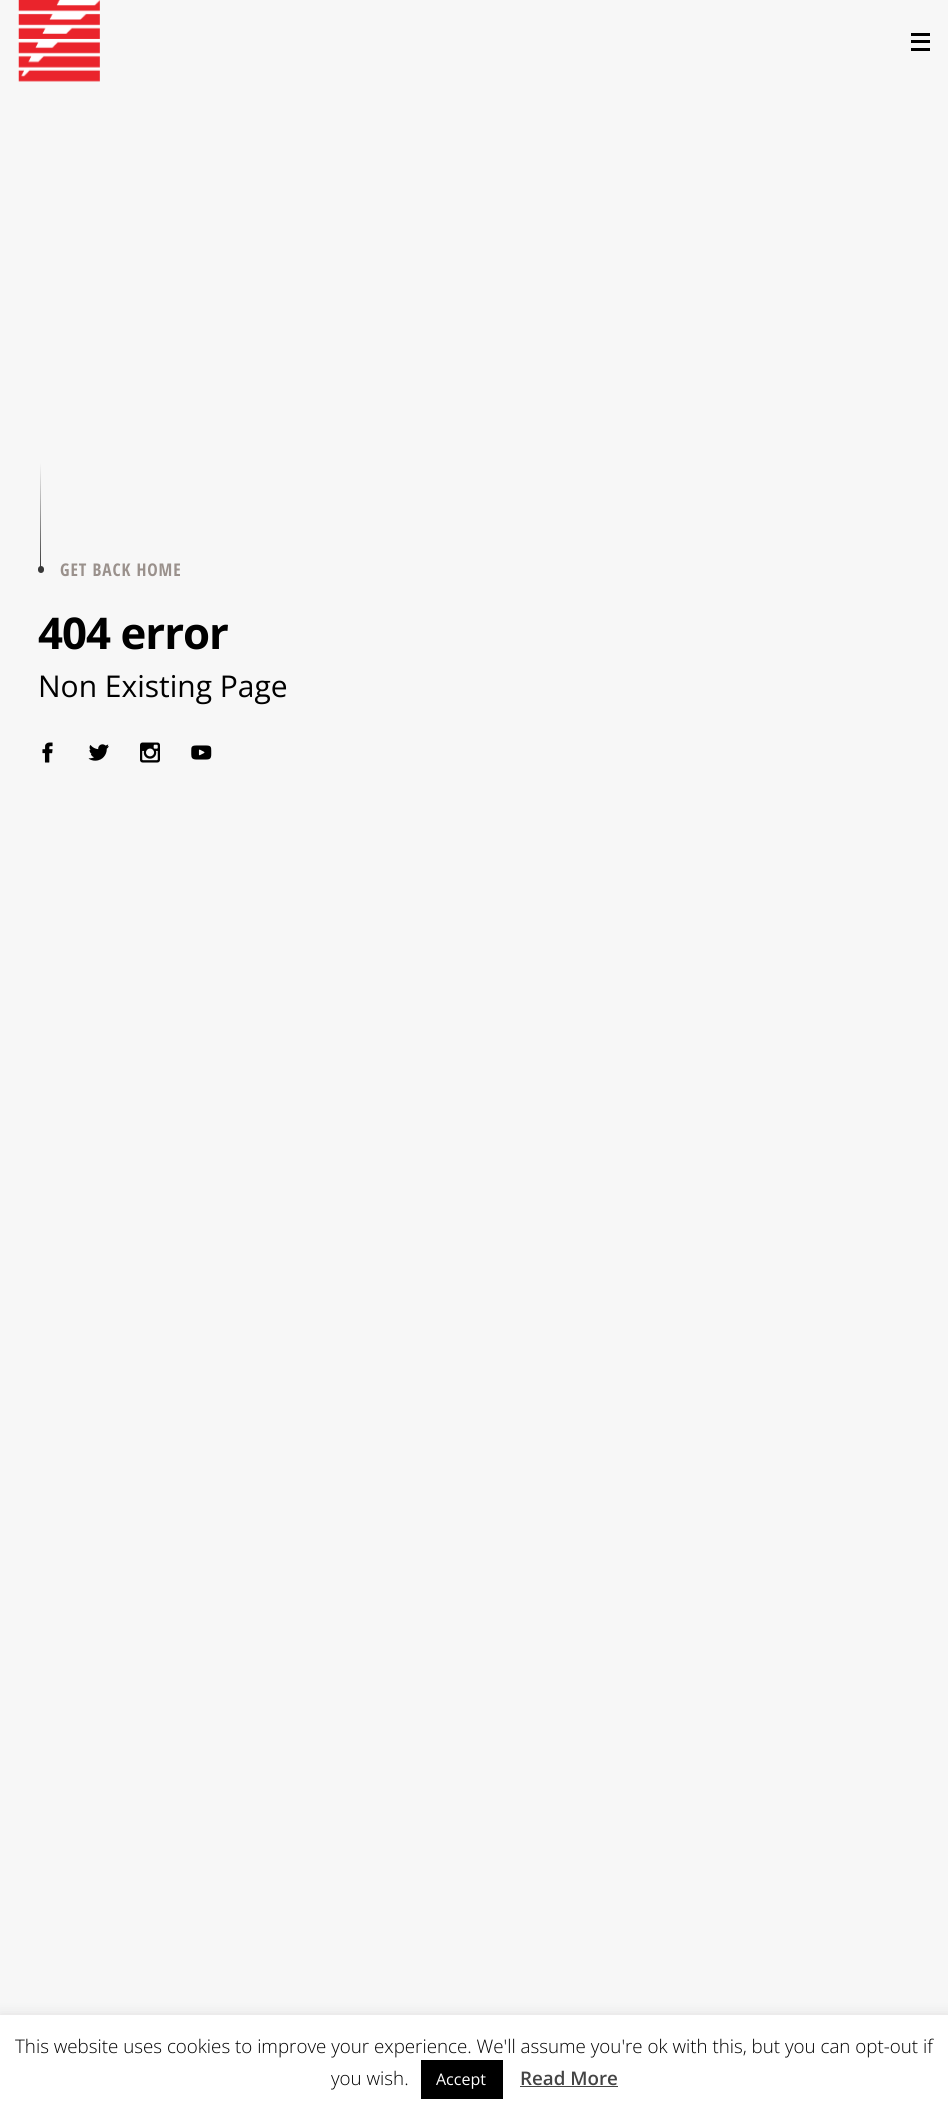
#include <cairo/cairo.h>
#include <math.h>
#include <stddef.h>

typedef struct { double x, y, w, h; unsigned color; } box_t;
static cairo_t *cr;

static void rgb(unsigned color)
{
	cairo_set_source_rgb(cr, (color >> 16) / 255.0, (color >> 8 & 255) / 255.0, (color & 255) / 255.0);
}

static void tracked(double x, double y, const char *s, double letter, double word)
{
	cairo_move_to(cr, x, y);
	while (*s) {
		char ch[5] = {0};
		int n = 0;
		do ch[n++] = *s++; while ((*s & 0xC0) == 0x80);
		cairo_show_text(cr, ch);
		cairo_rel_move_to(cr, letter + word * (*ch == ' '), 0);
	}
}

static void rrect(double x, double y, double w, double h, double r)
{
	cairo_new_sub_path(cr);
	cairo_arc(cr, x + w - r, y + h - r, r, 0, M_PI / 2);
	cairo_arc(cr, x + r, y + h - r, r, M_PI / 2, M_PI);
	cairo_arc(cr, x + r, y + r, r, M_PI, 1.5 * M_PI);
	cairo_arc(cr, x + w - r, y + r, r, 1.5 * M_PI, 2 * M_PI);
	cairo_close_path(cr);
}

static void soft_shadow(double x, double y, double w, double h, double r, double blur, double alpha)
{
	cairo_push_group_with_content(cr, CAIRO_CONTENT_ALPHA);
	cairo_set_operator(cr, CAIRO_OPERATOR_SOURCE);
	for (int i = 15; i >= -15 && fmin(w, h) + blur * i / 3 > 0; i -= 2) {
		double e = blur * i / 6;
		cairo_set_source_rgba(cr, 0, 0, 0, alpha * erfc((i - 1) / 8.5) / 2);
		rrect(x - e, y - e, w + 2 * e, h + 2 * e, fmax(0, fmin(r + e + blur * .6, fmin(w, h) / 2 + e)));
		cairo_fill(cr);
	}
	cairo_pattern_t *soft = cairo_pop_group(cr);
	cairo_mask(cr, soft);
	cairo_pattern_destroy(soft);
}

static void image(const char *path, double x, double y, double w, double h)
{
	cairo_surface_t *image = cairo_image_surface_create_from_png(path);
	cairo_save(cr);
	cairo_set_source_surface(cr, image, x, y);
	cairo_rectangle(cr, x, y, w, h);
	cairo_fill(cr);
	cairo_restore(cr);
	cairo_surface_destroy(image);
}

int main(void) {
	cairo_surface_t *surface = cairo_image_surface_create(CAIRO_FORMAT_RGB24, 948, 2113);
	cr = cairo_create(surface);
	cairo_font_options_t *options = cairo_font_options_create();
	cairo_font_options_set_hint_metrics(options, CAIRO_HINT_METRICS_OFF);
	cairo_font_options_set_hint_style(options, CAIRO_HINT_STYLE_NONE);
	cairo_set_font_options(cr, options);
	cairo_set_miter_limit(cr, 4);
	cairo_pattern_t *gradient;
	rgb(0xf7f7f7);
	cairo_paint(cr);
	image("img/1.png", 18, 0, 82, 82);
	{
		static const box_t items[] = {
			{911, 33, 19, 3, 0x000000},
			{911, 40, 19, 3, 0x000000},
			{911, 48, 19, 3, 0x000000},
		};
		for (size_t i = 0; i < sizeof items / sizeof *items; i++) {
			rgb(items[i].color);
			cairo_rectangle(cr, items[i].x, items[i].y, items[i].w, items[i].h);
			cairo_fill(cr);
		}
	}
	rgb(0x383838);
	rrect(38, 566, 6, 7, 3);
	cairo_fill(cr);
	gradient = cairo_pattern_create_linear(41, 463, 41, 569);
	cairo_pattern_add_color_stop_rgba(gradient, 0, 0.22, 0.22, 0.22, 0);
	cairo_pattern_add_color_stop_rgba(gradient, 1, 0.22, 0.22, 0.22, 1);
	cairo_set_source(cr, gradient);
	cairo_pattern_destroy(gradient);
	cairo_rectangle(cr, 40, 463, 1, 106);
	cairo_fill(cr);
	image("img/2.png", 42, 742, 11, 21);
	image("img/3.png", 88, 744, 21, 17);
	image("img/4.png", 140, 742, 20, 21);
	image("img/5.png", 191, 745, 21, 15);
	rgb(0xacabab);
	soft_shadow(0, 2014, 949, 99, 0, 6, 0.3);
	{
		static const box_t items[] = {
			{0, 2015, 948, 98, 0xffffff},
			{421, 2060, 82, 39, 0x000000},
			{520, 2086, 98, 1, 0x444444},
		};
		for (size_t i = 0; i < sizeof items / sizeof *items; i++) {
			rgb(items[i].color);
			cairo_rectangle(cr, items[i].x, items[i].y, items[i].w, items[i].h);
			cairo_fill(cr);
		}
	}
	cairo_select_font_face(cr, "Open Sans Condensed", CAIRO_FONT_SLANT_NORMAL, CAIRO_FONT_WEIGHT_BOLD);
	cairo_set_font_size(cr, 17.5);
	rgb(0x9a918c);
	tracked(60, 576, "GET BACK HOME", 0.9, 0);
	cairo_select_font_face(cr, "Open Sans", CAIRO_FONT_SLANT_NORMAL, CAIRO_FONT_WEIGHT_BOLD);
	cairo_set_font_size(cr, 43.75);
	rgb(0x000000);
	tracked(38, 649, "404 error", -1, 0);
	cairo_select_font_face(cr, "Open Sans", CAIRO_FONT_SLANT_NORMAL, CAIRO_FONT_WEIGHT_NORMAL);
	cairo_set_font_size(cr, 30);
	cairo_move_to(cr, 38, 697);
	cairo_show_text(cr, "Non Existing Page");
	cairo_select_font_face(cr, "Open Sans Light", CAIRO_FONT_SLANT_NORMAL, CAIRO_FONT_WEIGHT_NORMAL);
	cairo_set_font_size(cr, 18.75);
	cairo_move_to(cr, 15, 2053);
	cairo_show_text(cr, "This website uses cookies to improve your experience. We'll assume you're ok with this, but you can opt-out if");
	cairo_move_to(cr, 331, 2085);
	cairo_show_text(cr, "you wish.");
	cairo_select_font_face(cr, "Open Sans", CAIRO_FONT_SLANT_NORMAL, CAIRO_FONT_WEIGHT_NORMAL);
	cairo_set_font_size(cr, 16);
	rgb(0xffffff);
	cairo_move_to(cr, 436, 2085);
	cairo_show_text(cr, "Accept");
	cairo_select_font_face(cr, "Open Sans SemiBold", CAIRO_FONT_SLANT_NORMAL, CAIRO_FONT_WEIGHT_NORMAL);
	cairo_set_font_size(cr, 18.75);
	rgb(0x444444);
	cairo_move_to(cr, 520, 2085);
	cairo_show_text(cr, "Read More");
	cairo_surface_write_to_png(surface, "page.png");
	cairo_font_options_destroy(options);
	cairo_destroy(cr);
	cairo_surface_destroy(surface);
	return 0;
}
